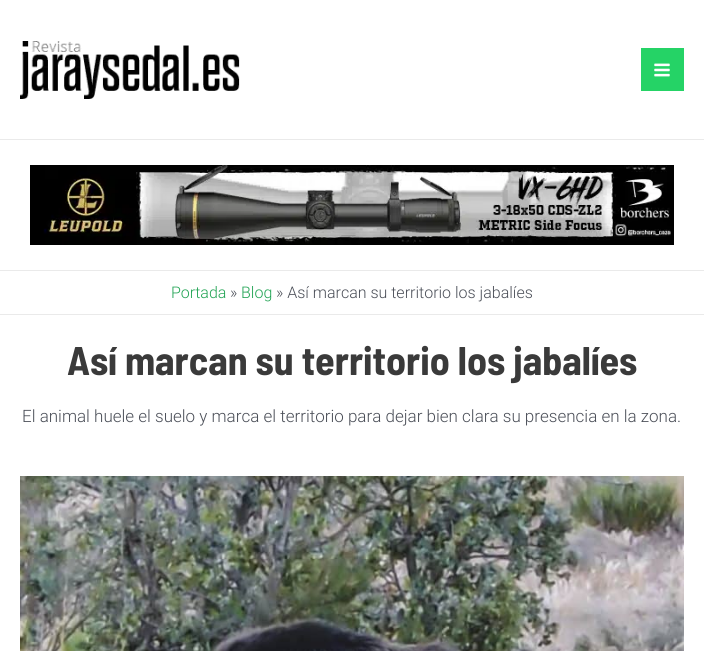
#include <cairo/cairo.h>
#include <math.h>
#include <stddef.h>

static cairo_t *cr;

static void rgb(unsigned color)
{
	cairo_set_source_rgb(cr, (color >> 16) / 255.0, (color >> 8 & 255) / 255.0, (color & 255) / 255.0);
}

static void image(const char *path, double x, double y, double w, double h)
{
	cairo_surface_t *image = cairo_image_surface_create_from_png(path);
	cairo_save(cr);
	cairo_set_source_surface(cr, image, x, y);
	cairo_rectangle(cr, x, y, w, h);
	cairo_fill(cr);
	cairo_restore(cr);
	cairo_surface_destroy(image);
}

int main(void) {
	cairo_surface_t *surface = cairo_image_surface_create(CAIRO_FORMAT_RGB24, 704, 651);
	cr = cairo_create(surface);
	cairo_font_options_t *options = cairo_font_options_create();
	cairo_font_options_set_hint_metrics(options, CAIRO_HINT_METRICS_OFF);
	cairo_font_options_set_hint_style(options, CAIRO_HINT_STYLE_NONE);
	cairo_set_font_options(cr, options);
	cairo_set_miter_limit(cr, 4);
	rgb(0xffffff);
	cairo_paint(cr);
	rgb(0xeaeaea);
	cairo_rectangle(cr, 0, 139, 704, 1);
	cairo_fill(cr);
	image("img/1.png", 20, 41, 220, 58);
	rgb(0x25d366);
	cairo_rectangle(cr, 641, 48, 43, 43);
	cairo_fill(cr);
	image("img/2.png", 654, 63, 16, 14);
	rgb(0xeaeaea);
	cairo_rectangle(cr, 0, 270, 704, 1);
	cairo_fill(cr);
	image("img/3.png", 30, 165, 644, 80);
	cairo_rectangle(cr, 0, 314, 704, 1);
	cairo_fill(cr);
	image("img/4.png", 20, 476, 664, 175);
	cairo_select_font_face(cr, "Roboto Light", CAIRO_FONT_SLANT_NORMAL, CAIRO_FONT_WEIGHT_NORMAL);
	cairo_set_font_size(cr, 16);
	rgb(0x23a455);
	cairo_move_to(cr, 171, 298);
	cairo_show_text(cr, "Portada");
	rgb(0x4b4f58);
	cairo_move_to(cr, 230, 298);
	cairo_show_text(cr, "»");
	rgb(0x23a455);
	cairo_move_to(cr, 241, 298);
	cairo_show_text(cr, "Blog");
	rgb(0x4b4f58);
	cairo_move_to(cr, 276, 298);
	cairo_show_text(cr, "» Así marcan su territorio los jabalíes");
	cairo_select_font_face(cr, "Barlow Semi Condensed", CAIRO_FONT_SLANT_NORMAL, CAIRO_FONT_WEIGHT_BOLD);
	cairo_set_font_size(cr, 40);
	rgb(0x3a3a3a);
	cairo_move_to(cr, 67, 375);
	cairo_show_text(cr, "Así marcan su territorio los jabalíes");
	cairo_select_font_face(cr, "Roboto Light", CAIRO_FONT_SLANT_NORMAL, CAIRO_FONT_WEIGHT_NORMAL);
	cairo_set_font_size(cr, 17);
	rgb(0x4b4f58);
	cairo_move_to(cr, 22, 422);
	cairo_show_text(cr, "El animal huele el suelo y marca el territorio para dejar bien clara su presencia en la zona.");
	cairo_surface_write_to_png(surface, "page.png");
	cairo_font_options_destroy(options);
	cairo_destroy(cr);
	cairo_surface_destroy(surface);
	return 0;
}
